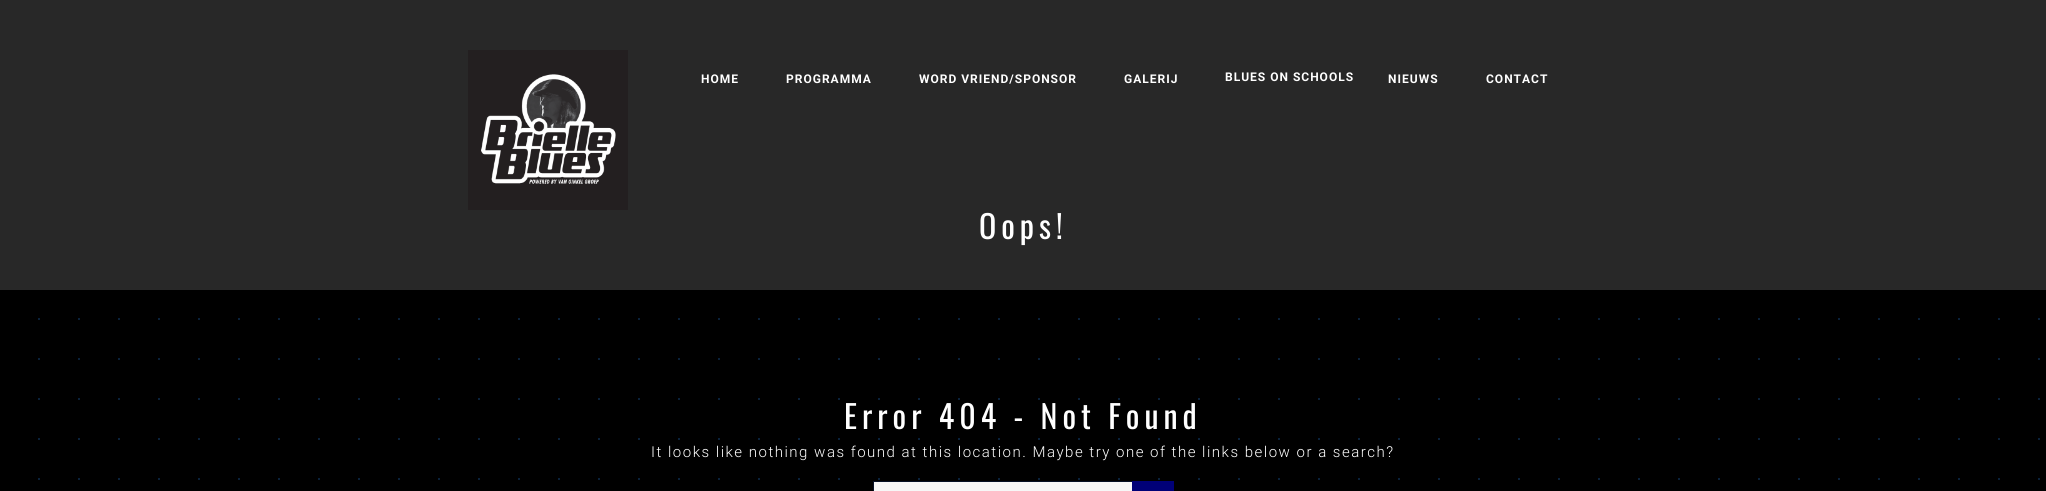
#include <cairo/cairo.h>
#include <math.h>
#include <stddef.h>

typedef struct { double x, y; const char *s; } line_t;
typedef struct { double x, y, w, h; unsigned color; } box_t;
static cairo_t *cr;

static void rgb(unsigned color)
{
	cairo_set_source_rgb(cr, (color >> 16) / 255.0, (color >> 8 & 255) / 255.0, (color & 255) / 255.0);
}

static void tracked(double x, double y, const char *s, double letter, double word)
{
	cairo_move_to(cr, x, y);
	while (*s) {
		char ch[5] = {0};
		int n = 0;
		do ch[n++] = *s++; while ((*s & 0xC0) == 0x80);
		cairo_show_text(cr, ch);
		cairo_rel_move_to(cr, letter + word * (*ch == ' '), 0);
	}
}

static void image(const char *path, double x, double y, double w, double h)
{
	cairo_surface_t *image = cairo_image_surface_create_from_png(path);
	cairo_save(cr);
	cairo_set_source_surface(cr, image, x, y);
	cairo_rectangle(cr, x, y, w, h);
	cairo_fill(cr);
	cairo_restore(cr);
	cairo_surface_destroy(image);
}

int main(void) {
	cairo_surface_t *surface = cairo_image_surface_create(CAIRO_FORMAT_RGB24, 2046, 491);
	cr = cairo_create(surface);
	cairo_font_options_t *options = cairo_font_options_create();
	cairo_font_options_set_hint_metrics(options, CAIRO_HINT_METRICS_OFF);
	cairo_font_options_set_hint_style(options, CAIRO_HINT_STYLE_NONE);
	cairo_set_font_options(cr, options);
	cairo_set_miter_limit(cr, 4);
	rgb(0x0a223c);
	cairo_paint(cr);
	rgb(0x282828);
	cairo_rectangle(cr, 0, 0, 2046, 290);
	cairo_fill(cr);
	image("img/1.png", 468, 50, 160, 160);
	{
		static const box_t items[] = {
			{38, 290, 2002, 28, 0x000000},
			{38, 320, 2002, 38, 0x000000},
			{38, 360, 2002, 38, 0x000000},
			{38, 400, 2002, 38, 0x000000},
			{38, 440, 2002, 38, 0x000000},
			{0, 480, 2046, 11, 0x000000},
		};
		for (size_t i = 0; i < sizeof items / sizeof *items; i++) {
			rgb(items[i].color);
			cairo_rectangle(cr, items[i].x, items[i].y, items[i].w, items[i].h);
			cairo_fill(cr);
		}
	}
	image("img/2.png", 0, 290, 2046, 190);
	rgb(0xf7f7f7);
	cairo_rectangle(cr, 874, 482, 258, 9);
	cairo_fill(cr);
	cairo_rectangle(cr, 873.5, 481.5, 299, 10);
	rgb(0x071126);
	cairo_set_line_width(cr, 1);
	cairo_stroke(cr);
	rgb(0x000077);
	cairo_rectangle(cr, 1132, 481, 42, 10);
	cairo_fill(cr);
	cairo_select_font_face(cr, "Roboto", CAIRO_FONT_SLANT_NORMAL, CAIRO_FONT_WEIGHT_BOLD);
	cairo_set_font_size(cr, 12);
	rgb(0xffffff);
	{
		static const line_t items[] = {
			{701, 83, "HOME"},
			{786, 83, "PROGRAMMA"},
			{919, 83, "WORD VRIEND/SPONSOR"},
			{1124, 83, "GALERIJ"},
			{1225, 81, "BLUES ON SCHOOLS"},
			{1388, 83, "NIEUWS"},
			{1486, 83, "CONTACT"},
		};
		for (size_t i = 0; i < sizeof items / sizeof *items; i++) {
			tracked(items[i].x, items[i].y, items[i].s, 1, 0);
		}
	}
	cairo_select_font_face(cr, "Oswald", CAIRO_FONT_SLANT_NORMAL, CAIRO_FONT_WEIGHT_NORMAL);
	cairo_set_font_size(cr, 32);
	tracked(979, 239, "Oops!", 5, 0);
	tracked(844, 429, "Error 404 - Not Found", 5, 0);
	cairo_select_font_face(cr, "Roboto Light", CAIRO_FONT_SLANT_NORMAL, CAIRO_FONT_WEIGHT_NORMAL);
	cairo_set_font_size(cr, 15);
	tracked(651, 457, "It looks like nothing was found at this location. Maybe try one of the links below or a search?", 1.5, 0);
	cairo_surface_write_to_png(surface, "page.png");
	cairo_font_options_destroy(options);
	cairo_destroy(cr);
	cairo_surface_destroy(surface);
	return 0;
}
